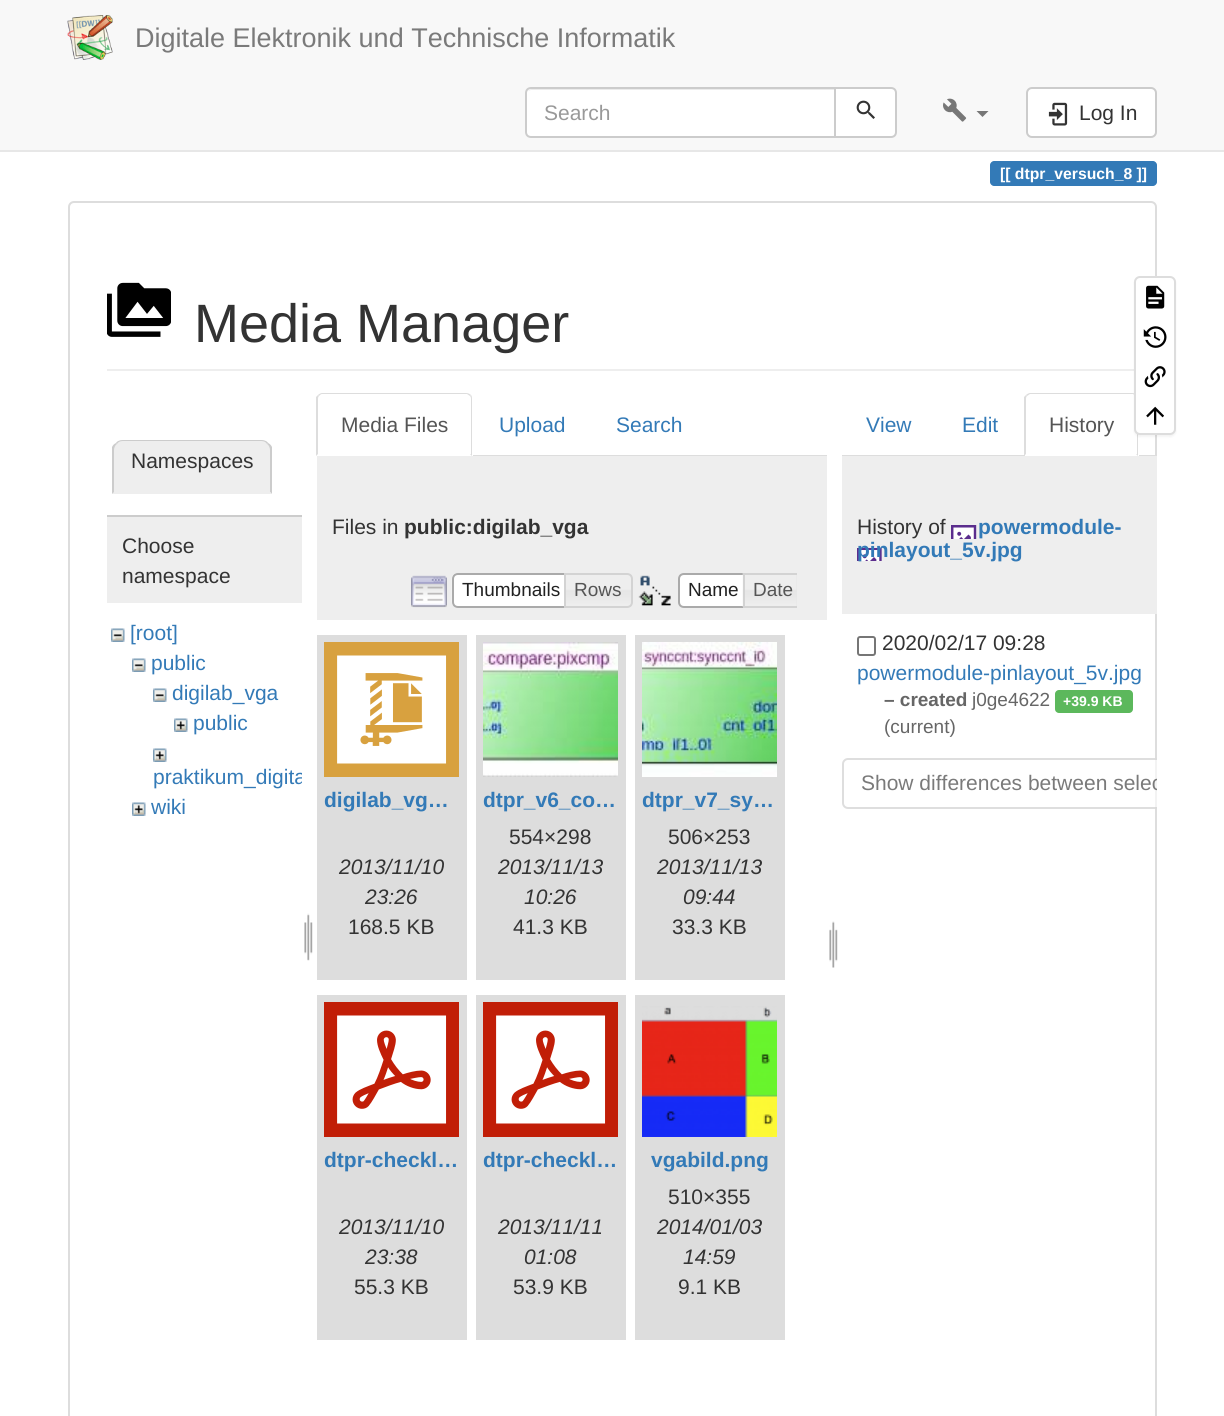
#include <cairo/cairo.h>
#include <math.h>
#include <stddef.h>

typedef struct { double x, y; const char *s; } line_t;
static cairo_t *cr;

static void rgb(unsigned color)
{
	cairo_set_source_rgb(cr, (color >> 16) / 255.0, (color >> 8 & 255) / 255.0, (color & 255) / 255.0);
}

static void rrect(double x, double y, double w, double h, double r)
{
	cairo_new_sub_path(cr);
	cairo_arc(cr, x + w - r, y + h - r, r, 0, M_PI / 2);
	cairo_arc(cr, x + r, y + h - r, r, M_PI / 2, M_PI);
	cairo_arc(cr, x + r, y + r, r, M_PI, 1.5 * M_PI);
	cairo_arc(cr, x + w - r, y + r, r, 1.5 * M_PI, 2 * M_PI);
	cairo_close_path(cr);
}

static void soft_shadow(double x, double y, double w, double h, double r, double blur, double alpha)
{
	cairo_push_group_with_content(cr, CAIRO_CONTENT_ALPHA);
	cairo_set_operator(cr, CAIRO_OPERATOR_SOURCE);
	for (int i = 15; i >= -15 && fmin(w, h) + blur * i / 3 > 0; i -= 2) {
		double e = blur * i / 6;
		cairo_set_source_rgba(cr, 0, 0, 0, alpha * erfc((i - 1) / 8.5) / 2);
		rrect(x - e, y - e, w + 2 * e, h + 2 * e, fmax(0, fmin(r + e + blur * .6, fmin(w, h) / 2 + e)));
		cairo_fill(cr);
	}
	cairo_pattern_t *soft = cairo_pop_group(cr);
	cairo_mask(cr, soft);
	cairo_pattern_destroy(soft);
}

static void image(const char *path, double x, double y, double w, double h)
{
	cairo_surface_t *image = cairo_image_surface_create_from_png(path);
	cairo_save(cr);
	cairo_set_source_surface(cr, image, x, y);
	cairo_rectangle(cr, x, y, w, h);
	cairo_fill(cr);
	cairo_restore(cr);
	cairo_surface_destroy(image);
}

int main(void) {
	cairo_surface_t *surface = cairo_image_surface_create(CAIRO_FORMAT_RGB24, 1224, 1416);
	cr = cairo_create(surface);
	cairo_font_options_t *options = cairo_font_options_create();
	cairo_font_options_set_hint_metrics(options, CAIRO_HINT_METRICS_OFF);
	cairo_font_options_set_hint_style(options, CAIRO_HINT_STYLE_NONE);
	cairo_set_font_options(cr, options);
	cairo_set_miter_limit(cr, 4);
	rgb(0xffffff);
	cairo_paint(cr);
	rgb(0xf8f8f8);
	cairo_rectangle(cr, 0, 0, 1224, 150);
	cairo_fill(cr);
	rgb(0xe7e7e7);
	cairo_rectangle(cr, 0, 150, 1224, 2);
	cairo_fill(cr);
	image("img/1.png", 67, 15, 46, 45);
	rgb(0xffffff);
	cairo_new_path(cr);
	cairo_move_to(cr, 531, 87);
	cairo_line_to(cr, 836, 87);
	cairo_line_to(cr, 836, 138);
	cairo_line_to(cr, 531, 138);
	cairo_curve_to(cr, 527.5, 138, 525, 135.5, 525, 132);
	cairo_line_to(cr, 525, 93);
	cairo_curve_to(cr, 525, 89.5, 527.5, 87, 531, 87);
	cairo_close_path(cr);
	cairo_fill(cr);
	rgb(0xececec);
	cairo_new_path(cr);
	cairo_move_to(cr, 531, 90);
	cairo_line_to(cr, 834, 90);
	cairo_line_to(cr, 834, 89);
	cairo_line_to(cr, 532, 89);
	cairo_curve_to(cr, 530, 89, 529, 90, 528, 91);
	cairo_close_path(cr);
	cairo_fill(cr);
	cairo_new_path(cr);
	cairo_move_to(cr, 531, 88);
	cairo_line_to(cr, 835, 88);
	cairo_line_to(cr, 835, 137);
	cairo_line_to(cr, 531, 137);
	cairo_curve_to(cr, 528, 137, 526, 135, 526, 132);
	cairo_line_to(cr, 526, 93);
	cairo_curve_to(cr, 526, 90, 528, 88, 531, 88);
	cairo_close_path(cr);
	rgb(0xcccccc);
	cairo_stroke(cr);
	rgb(0xffffff);
	cairo_new_path(cr);
	cairo_move_to(cr, 835, 88);
	cairo_line_to(cr, 891, 88);
	cairo_curve_to(cr, 894, 88, 896, 90, 896, 93);
	cairo_line_to(cr, 896, 132);
	cairo_curve_to(cr, 896, 135, 894, 137, 891, 137);
	cairo_line_to(cr, 835, 137);
	cairo_close_path(cr);
	cairo_fill_preserve(cr);
	rgb(0xcccccc);
	cairo_stroke(cr);
	image("img/2.png", 856, 100, 19, 19);
	image("img/3.png", 943, 98, 24, 24);
	rgb(0x777777);
	cairo_new_path(cr);
	cairo_move_to(cr, 976.5, 111);
	cairo_line_to(cr, 988.5, 111);
	cairo_line_to(cr, 982.5, 117);
	cairo_close_path(cr);
	cairo_fill(cr);
	rgb(0xffffff);
	rrect(1027, 88, 129, 49, 5);
	cairo_fill_preserve(cr);
	rgb(0xcccccc);
	cairo_stroke(cr);
	image("img/4.png", 1048, 102, 20, 24);
	rgb(0x337ab7);
	cairo_new_path(cr);
	cairo_move_to(cr, 994, 161);
	cairo_line_to(cr, 1016, 161);
	cairo_line_to(cr, 1016, 186);
	cairo_line_to(cr, 994, 186);
	cairo_curve_to(cr, 992, 186, 990, 184, 990, 182);
	cairo_line_to(cr, 990, 165);
	cairo_curve_to(cr, 990, 163, 992, 161, 994, 161);
	cairo_close_path(cr);
	cairo_fill(cr);
	cairo_rectangle(cr, 1016, 161, 117, 25);
	cairo_fill(cr);
	cairo_new_path(cr);
	cairo_move_to(cr, 1133, 161);
	cairo_line_to(cr, 1153, 161);
	cairo_curve_to(cr, 1155, 161, 1157, 163, 1157, 165);
	cairo_line_to(cr, 1157, 182);
	cairo_curve_to(cr, 1157, 184, 1155, 186, 1153, 186);
	cairo_line_to(cr, 1133, 186);
	cairo_close_path(cr);
	cairo_fill(cr);
	rrect(69, 202, 1087, 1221, 5);
	rgb(0xdddddd);
	cairo_stroke(cr);
	rgb(0xeeeeee);
	cairo_rectangle(cr, 107, 369, 1027, 2);
	cairo_fill(cr);
	rgb(0xdddddd);
	cairo_rectangle(cr, 842, 455, 315, 1);
	cairo_fill(cr);
	rgb(0xffffff);
	cairo_new_path(cr);
	cairo_move_to(cr, 1031, 393);
	cairo_line_to(cr, 1133, 393);
	cairo_curve_to(cr, 1136.5, 393, 1139, 395.5, 1139, 399);
	cairo_line_to(cr, 1139, 456);
	cairo_line_to(cr, 1025, 456);
	cairo_line_to(cr, 1025, 399);
	cairo_curve_to(cr, 1025, 395.5, 1027.5, 393, 1031, 393);
	cairo_close_path(cr);
	cairo_fill(cr);
	rgb(0xdddddd);
	cairo_new_path(cr);
	cairo_move_to(cr, 1030, 393);
	cairo_curve_to(cr, 1029, 393, 1027, 394, 1026, 395);
	cairo_line_to(cr, 1027, 396);
	cairo_line_to(cr, 1030, 394);
	cairo_line_to(cr, 1133, 394);
	cairo_line_to(cr, 1136, 396);
	cairo_line_to(cr, 1137, 395);
	cairo_curve_to(cr, 1136, 394, 1134, 393, 1132, 393);
	cairo_close_path(cr);
	cairo_fill(cr);
	cairo_new_path(cr);
	cairo_move_to(cr, 1137, 395);
	cairo_curve_to(cr, 1138, 396, 1138, 398, 1138, 399);
	cairo_line_to(cr, 1138, 456);
	cairo_line_to(cr, 1136, 454);
	cairo_line_to(cr, 1137, 454);
	cairo_line_to(cr, 1137, 399);
	cairo_curve_to(cr, 1137, 398, 1137, 397, 1136, 396);
	cairo_close_path(cr);
	cairo_fill(cr);
	rgb(0x000000);
	soft_shadow(1134, 278, 42, 159, 6, 1, 0.05);
	rgb(0xffffff);
	rrect(1135, 277, 40, 157, 5);
	cairo_fill_preserve(cr);
	rgb(0xdddddd);
	cairo_stroke(cr);
	image("img/5.png", 1146, 285, 19, 24);
	image("img/6.png", 1143, 326, 24, 22);
	image("img/7.png", 1144, 366, 22, 22);
	image("img/8.png", 1146, 406, 18, 19);
	image("img/9.png", 107, 282, 64, 55);
	rgb(0xeeeeee);
	cairo_new_path(cr);
	cairo_move_to(cr, 124, 440);
	cairo_line_to(cr, 261, 440);
	cairo_curve_to(cr, 267, 440, 272, 445, 272, 451);
	cairo_line_to(cr, 272, 494);
	cairo_line_to(cr, 113, 494);
	cairo_line_to(cr, 113, 451);
	cairo_curve_to(cr, 113, 445, 118, 440, 124, 440);
	cairo_close_path(cr);
	cairo_fill(cr);
	rgb(0xcccccc);
	cairo_new_path(cr);
	cairo_move_to(cr, 123, 440);
	cairo_curve_to(cr, 120, 440, 117, 441, 116, 443);
	cairo_line_to(cr, 117, 444);
	cairo_curve_to(cr, 118, 442, 120, 441, 123, 441);
	cairo_line_to(cr, 261, 441);
	cairo_curve_to(cr, 264, 441, 266, 442, 267, 444);
	cairo_line_to(cr, 268, 443);
	cairo_curve_to(cr, 267, 441, 264, 440, 261, 440);
	cairo_close_path(cr);
	cairo_fill(cr);
	cairo_new_path(cr);
	cairo_move_to(cr, 268, 443);
	cairo_curve_to(cr, 270, 444, 271, 445, 272, 447);
	cairo_line_to(cr, 272, 494);
	cairo_line_to(cr, 270, 492);
	cairo_line_to(cr, 270, 450);
	cairo_curve_to(cr, 270, 448, 269, 445, 267, 444);
	cairo_close_path(cr);
	cairo_fill(cr);
	rgb(0xeeeeee);
	cairo_new_path(cr);
	cairo_move_to(cr, 272, 494);
	cairo_line_to(cr, 270, 492);
	cairo_line_to(cr, 114, 492);
	cairo_line_to(cr, 112, 494);
	cairo_close_path(cr);
	cairo_fill(cr);
	rgb(0xcccccc);
	cairo_new_path(cr);
	cairo_move_to(cr, 112, 494);
	cairo_line_to(cr, 114, 492);
	cairo_line_to(cr, 114, 450);
	cairo_curve_to(cr, 114, 448, 115, 445, 117, 444);
	cairo_line_to(cr, 116, 443);
	cairo_curve_to(cr, 114, 444, 113, 445, 112, 447);
	cairo_close_path(cr);
	cairo_fill(cr);
	rgb(0xeeeeee);
	cairo_rectangle(cr, 107, 517, 195, 86);
	cairo_fill(cr);
	rgb(0xcccccc);
	cairo_rectangle(cr, 107, 515, 195, 2);
	cairo_fill(cr);
	image("img/10.png", 111, 628, 14, 14);
	image("img/10.png", 132, 658, 14, 14);
	image("img/10.png", 153, 688, 14, 14);
	image("img/11.png", 174, 718, 14, 14);
	image("img/11.png", 153, 748, 14, 14);
	image("img/11.png", 132, 802, 14, 14);
	image("img/12.png", 304, 913, 9, 48);
	rgb(0xdddddd);
	cairo_rectangle(cr, 473, 455, 354, 1);
	cairo_fill(cr);
	cairo_new_path(cr);
	cairo_move_to(cr, 322, 393);
	cairo_curve_to(cr, 321, 393, 319, 394, 318, 395);
	cairo_line_to(cr, 319, 396);
	cairo_curve_to(cr, 320, 395, 321, 394, 322, 394);
	cairo_line_to(cr, 467, 394);
	cairo_line_to(cr, 470, 396);
	cairo_line_to(cr, 471, 395);
	cairo_curve_to(cr, 470, 394, 468, 393, 466, 393);
	cairo_close_path(cr);
	cairo_fill(cr);
	cairo_new_path(cr);
	cairo_move_to(cr, 471, 395);
	cairo_curve_to(cr, 472, 396, 472, 398, 472, 399);
	cairo_line_to(cr, 472, 456);
	cairo_line_to(cr, 470, 454);
	cairo_line_to(cr, 471, 454);
	cairo_line_to(cr, 471, 399);
	cairo_curve_to(cr, 471, 398, 471, 397, 470, 396);
	cairo_close_path(cr);
	cairo_fill(cr);
	cairo_new_path(cr);
	cairo_move_to(cr, 316, 456);
	cairo_line_to(cr, 316, 397);
	cairo_line_to(cr, 318, 395);
	cairo_line_to(cr, 319, 396);
	cairo_curve_to(cr, 318, 397, 318, 398, 318, 399);
	cairo_line_to(cr, 318, 454);
	cairo_close_path(cr);
	cairo_fill(cr);
	rgb(0xeeeeee);
	cairo_rectangle(cr, 317, 456, 510, 164);
	cairo_fill(cr);
	image("img/13.png", 411, 575, 36, 33);
	rgb(0xffffff);
	cairo_new_path(cr);
	cairo_move_to(cr, 458, 573);
	cairo_line_to(cr, 572, 573);
	cairo_line_to(cr, 572, 608);
	cairo_line_to(cr, 458, 608);
	cairo_curve_to(cr, 454.5, 608, 452, 605.5, 452, 602);
	cairo_line_to(cr, 452, 579);
	cairo_curve_to(cr, 452, 575.5, 454.5, 573, 458, 573);
	cairo_close_path(cr);
	cairo_fill(cr);
	image("img/14.png", 451, 573, 5, 32);
	cairo_new_path(cr);
	cairo_move_to(cr, 458, 574);
	cairo_line_to(cr, 571, 574);
	cairo_line_to(cr, 571, 607);
	cairo_line_to(cr, 458, 607);
	cairo_curve_to(cr, 455, 607, 453, 605, 453, 602);
	cairo_line_to(cr, 453, 579);
	cairo_curve_to(cr, 453, 576, 455, 574, 458, 574);
	cairo_close_path(cr);
	rgb(0xaaaaaa);
	cairo_stroke(cr);
	image("img/15.png", 566, 573, 67, 34);
	cairo_new_path(cr);
	cairo_move_to(cr, 565, 574);
	cairo_line_to(cr, 627, 574);
	cairo_curve_to(cr, 630, 574, 632, 576, 632, 579);
	cairo_line_to(cr, 632, 602);
	cairo_curve_to(cr, 632, 605, 630, 607, 627, 607);
	cairo_line_to(cr, 565, 607);
	cairo_close_path(cr);
	rgb(0xd3d3d3);
	cairo_stroke(cr);
	image("img/16.png", 638, 575, 33, 31);
	rgb(0xffffff);
	cairo_new_path(cr);
	cairo_move_to(cr, 684, 574);
	cairo_line_to(cr, 749, 574);
	cairo_line_to(cr, 749, 607);
	cairo_line_to(cr, 684, 607);
	cairo_curve_to(cr, 681, 607, 679, 605, 679, 602);
	cairo_line_to(cr, 679, 579);
	cairo_curve_to(cr, 679, 576, 681, 574, 684, 574);
	cairo_close_path(cr);
	cairo_fill_preserve(cr);
	rgb(0xaaaaaa);
	cairo_stroke(cr);
	rgb(0xe6e6e6);
	cairo_rectangle(cr, 796, 575, 1, 31);
	cairo_fill(cr);
	image("img/17.png", 742, 573, 55, 34);
	cairo_save(cr);
	cairo_rectangle(cr, 399, 573, 398, 35);
	cairo_clip(cr);
	cairo_new_path(cr);
	cairo_move_to(cr, 744, 574);
	cairo_line_to(cr, 798, 574);
	cairo_curve_to(cr, 801, 574, 803, 576, 803, 579);
	cairo_line_to(cr, 803, 602);
	cairo_curve_to(cr, 803, 605, 801, 607, 798, 607);
	cairo_line_to(cr, 744, 607);
	cairo_close_path(cr);
	rgb(0xd3d3d3);
	cairo_stroke(cr);
	cairo_restore(cr);
	rgb(0xdddddd);
	cairo_rectangle(cr, 317, 635, 150, 345);
	cairo_fill(cr);
	image("img/18.png", 324, 642, 135, 135);
	cairo_rectangle(cr, 476, 635, 150, 345);
	cairo_fill(cr);
	image("img/19.png", 483, 642, 135, 135);
	cairo_rectangle(cr, 635, 635, 150, 345);
	cairo_fill(cr);
	image("img/20.png", 642, 642, 135, 135);
	cairo_rectangle(cr, 317, 995, 150, 345);
	cairo_fill(cr);
	image("img/21.png", 324, 1002, 135, 135);
	cairo_rectangle(cr, 476, 995, 150, 345);
	cairo_fill(cr);
	image("img/21.png", 483, 1002, 135, 135);
	cairo_rectangle(cr, 635, 995, 150, 345);
	cairo_fill(cr);
	image("img/22.png", 642, 1006, 135, 131);
	image("img/23.png", 829, 921, 9, 47);
	cairo_new_path(cr);
	cairo_move_to(cr, 1024, 456);
	cairo_line_to(cr, 1024, 397);
	cairo_line_to(cr, 1026, 395);
	cairo_line_to(cr, 1027, 396);
	cairo_curve_to(cr, 1026, 397, 1026, 398, 1026, 399);
	cairo_line_to(cr, 1026, 454);
	cairo_close_path(cr);
	cairo_fill(cr);
	rgb(0xeeeeee);
	cairo_rectangle(cr, 842, 456, 315, 158);
	cairo_fill(cr);
	rrect(858, 637, 17, 18, 2);
	rgb(0x767676);
	cairo_stroke(cr);
	rgb(0x5cb85c);
	rrect(1055, 690, 78, 23, 4);
	cairo_fill(cr);
	cairo_set_source_rgba(cr, 1, 1, 1, 0.65);
	cairo_new_path(cr);
	cairo_move_to(cr, 848, 758);
	cairo_line_to(cr, 1157, 758);
	cairo_line_to(cr, 1157, 809);
	cairo_line_to(cr, 848, 809);
	cairo_curve_to(cr, 844.5, 809, 842, 806.5, 842, 803);
	cairo_line_to(cr, 842, 764);
	cairo_curve_to(cr, 842, 760.5, 844.5, 758, 848, 758);
	cairo_close_path(cr);
	cairo_fill(cr);
	cairo_save(cr);
	cairo_rectangle(cr, 842, 629, 315, 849);
	cairo_clip(cr);
	rrect(843, 759, 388, 49, 5);
	cairo_set_source_rgba(cr, 0.8, 0.8, 0.8, 0.65);
	cairo_stroke(cr);
	cairo_restore(cr);
	cairo_select_font_face(cr, "Liberation Sans", CAIRO_FONT_SLANT_NORMAL, CAIRO_FONT_WEIGHT_NORMAL);
	cairo_set_font_size(cr, 27);
	rgb(0x7a7a7a);
	cairo_move_to(cr, 135, 47);
	cairo_show_text(cr, "Digitale Elektronik und Technische Informatik");
	cairo_set_font_size(cr, 21);
	rgb(0x999999);
	cairo_move_to(cr, 544, 120);
	cairo_show_text(cr, "Search");
	rgb(0x333333);
	cairo_move_to(cr, 1079, 120);
	cairo_show_text(cr, "Log In");
	cairo_select_font_face(cr, "Liberation Sans", CAIRO_FONT_SLANT_NORMAL, CAIRO_FONT_WEIGHT_BOLD);
	cairo_set_font_size(cr, 15.75);
	rgb(0xffffff);
	cairo_move_to(cr, 1000, 179);
	cairo_show_text(cr, "[[ dtpr_versuch_8 ]]");
	cairo_select_font_face(cr, "Liberation Sans", CAIRO_FONT_SLANT_NORMAL, CAIRO_FONT_WEIGHT_NORMAL);
	cairo_set_font_size(cr, 54);
	rgb(0x333333);
	cairo_move_to(cr, 194, 342);
	cairo_show_text(cr, "Media Manager");
	cairo_set_font_size(cr, 21);
	{
		static const line_t items[] = {
			{131, 468, "Namespaces"},
			{122, 553, "Choose"},
			{122, 583, "namespace"},
		};
		for (size_t i = 0; i < sizeof items / sizeof *items; i++) {
			cairo_move_to(cr, items[i].x, items[i].y);
			cairo_show_text(cr, items[i].s);
		}
	}
	rgb(0x337ab7);
	{
		static const line_t items[] = {
			{130, 640, "[root]"},
			{151, 670, "public"},
			{172, 700, "digilab_vga"},
			{193, 730, "public"},
		};
		for (size_t i = 0; i < sizeof items / sizeof *items; i++) {
			cairo_move_to(cr, items[i].x, items[i].y);
			cairo_show_text(cr, items[i].s);
		}
	}
	cairo_save(cr);
	cairo_rectangle(cr, 153, 738, 149, 54);
	cairo_clip(cr);
	cairo_move_to(cr, 153, 784);
	cairo_show_text(cr, "praktikum_digita");
	cairo_restore(cr);
	cairo_move_to(cr, 151, 814);
	cairo_show_text(cr, "wiki");
	rgb(0x555555);
	cairo_move_to(cr, 341, 432);
	cairo_show_text(cr, "Media Files");
	rgb(0x337ab7);
	cairo_move_to(cr, 499, 432);
	cairo_show_text(cr, "Upload");
	cairo_move_to(cr, 616, 432);
	cairo_show_text(cr, "Search");
	rgb(0x333333);
	cairo_move_to(cr, 332, 534);
	cairo_show_text(cr, "Files in");
	cairo_select_font_face(cr, "Liberation Sans", CAIRO_FONT_SLANT_NORMAL, CAIRO_FONT_WEIGHT_BOLD);
	cairo_move_to(cr, 404, 534);
	cairo_show_text(cr, "public:digilab_vga");
	cairo_select_font_face(cr, "Liberation Sans", CAIRO_FONT_SLANT_NORMAL, CAIRO_FONT_WEIGHT_NORMAL);
	cairo_set_font_size(cr, 19);
	rgb(0x212121);
	cairo_move_to(cr, 462, 596);
	cairo_show_text(cr, "Thumbnails");
	rgb(0x555555);
	cairo_move_to(cr, 574, 596);
	cairo_show_text(cr, "Rows");
	rgb(0x212121);
	cairo_move_to(cr, 688, 596);
	cairo_show_text(cr, "Name");
	rgb(0x555555);
	cairo_move_to(cr, 753, 596);
	cairo_show_text(cr, "Date");
	cairo_select_font_face(cr, "Liberation Sans", CAIRO_FONT_SLANT_NORMAL, CAIRO_FONT_WEIGHT_BOLD);
	cairo_set_font_size(cr, 21);
	rgb(0x337ab7);
	cairo_move_to(cr, 324, 807);
	cairo_show_text(cr, "digilab_vg…");
	cairo_select_font_face(cr, "Liberation Sans", CAIRO_FONT_SLANT_ITALIC, CAIRO_FONT_WEIGHT_NORMAL);
	rgb(0x333333);
	cairo_move_to(cr, 339, 874);
	cairo_show_text(cr, "2013/11/10");
	cairo_move_to(cr, 365, 904);
	cairo_show_text(cr, "23:26");
	cairo_select_font_face(cr, "Liberation Sans", CAIRO_FONT_SLANT_NORMAL, CAIRO_FONT_WEIGHT_NORMAL);
	cairo_move_to(cr, 348, 934);
	cairo_show_text(cr, "168.5 KB");
	cairo_select_font_face(cr, "Liberation Sans", CAIRO_FONT_SLANT_NORMAL, CAIRO_FONT_WEIGHT_BOLD);
	rgb(0x337ab7);
	cairo_move_to(cr, 483, 807);
	cairo_show_text(cr, "dtpr_v6_co…");
	cairo_select_font_face(cr, "Liberation Sans", CAIRO_FONT_SLANT_NORMAL, CAIRO_FONT_WEIGHT_NORMAL);
	rgb(0x333333);
	cairo_move_to(cr, 509, 844);
	cairo_show_text(cr, "554×298");
	cairo_select_font_face(cr, "Liberation Sans", CAIRO_FONT_SLANT_ITALIC, CAIRO_FONT_WEIGHT_NORMAL);
	cairo_move_to(cr, 498, 874);
	cairo_show_text(cr, "2013/11/13");
	cairo_move_to(cr, 524, 904);
	cairo_show_text(cr, "10:26");
	cairo_select_font_face(cr, "Liberation Sans", CAIRO_FONT_SLANT_NORMAL, CAIRO_FONT_WEIGHT_NORMAL);
	cairo_move_to(cr, 513, 934);
	cairo_show_text(cr, "41.3 KB");
	cairo_select_font_face(cr, "Liberation Sans", CAIRO_FONT_SLANT_NORMAL, CAIRO_FONT_WEIGHT_BOLD);
	rgb(0x337ab7);
	cairo_move_to(cr, 642, 807);
	cairo_show_text(cr, "dtpr_v7_sy…");
	cairo_select_font_face(cr, "Liberation Sans", CAIRO_FONT_SLANT_NORMAL, CAIRO_FONT_WEIGHT_NORMAL);
	rgb(0x333333);
	cairo_move_to(cr, 668, 844);
	cairo_show_text(cr, "506×253");
	cairo_select_font_face(cr, "Liberation Sans", CAIRO_FONT_SLANT_ITALIC, CAIRO_FONT_WEIGHT_NORMAL);
	cairo_move_to(cr, 657, 874);
	cairo_show_text(cr, "2013/11/13");
	cairo_move_to(cr, 683, 904);
	cairo_show_text(cr, "09:44");
	cairo_select_font_face(cr, "Liberation Sans", CAIRO_FONT_SLANT_NORMAL, CAIRO_FONT_WEIGHT_NORMAL);
	cairo_move_to(cr, 672, 934);
	cairo_show_text(cr, "33.3 KB");
	cairo_select_font_face(cr, "Liberation Sans", CAIRO_FONT_SLANT_NORMAL, CAIRO_FONT_WEIGHT_BOLD);
	rgb(0x337ab7);
	cairo_move_to(cr, 324, 1167);
	cairo_show_text(cr, "dtpr-checkl…");
	cairo_select_font_face(cr, "Liberation Sans", CAIRO_FONT_SLANT_ITALIC, CAIRO_FONT_WEIGHT_NORMAL);
	rgb(0x333333);
	cairo_move_to(cr, 339, 1234);
	cairo_show_text(cr, "2013/11/10");
	cairo_move_to(cr, 365, 1264);
	cairo_show_text(cr, "23:38");
	cairo_select_font_face(cr, "Liberation Sans", CAIRO_FONT_SLANT_NORMAL, CAIRO_FONT_WEIGHT_NORMAL);
	cairo_move_to(cr, 354, 1294);
	cairo_show_text(cr, "55.3 KB");
	cairo_select_font_face(cr, "Liberation Sans", CAIRO_FONT_SLANT_NORMAL, CAIRO_FONT_WEIGHT_BOLD);
	rgb(0x337ab7);
	cairo_move_to(cr, 483, 1167);
	cairo_show_text(cr, "dtpr-checkl…");
	cairo_select_font_face(cr, "Liberation Sans", CAIRO_FONT_SLANT_ITALIC, CAIRO_FONT_WEIGHT_NORMAL);
	rgb(0x333333);
	cairo_move_to(cr, 498, 1234);
	cairo_show_text(cr, "2013/11/11");
	cairo_move_to(cr, 524, 1264);
	cairo_show_text(cr, "01:08");
	cairo_select_font_face(cr, "Liberation Sans", CAIRO_FONT_SLANT_NORMAL, CAIRO_FONT_WEIGHT_NORMAL);
	cairo_move_to(cr, 513, 1294);
	cairo_show_text(cr, "53.9 KB");
	cairo_select_font_face(cr, "Liberation Sans", CAIRO_FONT_SLANT_NORMAL, CAIRO_FONT_WEIGHT_BOLD);
	rgb(0x337ab7);
	cairo_move_to(cr, 651, 1167);
	cairo_show_text(cr, "vgabild.png");
	cairo_select_font_face(cr, "Liberation Sans", CAIRO_FONT_SLANT_NORMAL, CAIRO_FONT_WEIGHT_NORMAL);
	rgb(0x333333);
	cairo_move_to(cr, 668, 1204);
	cairo_show_text(cr, "510×355");
	cairo_select_font_face(cr, "Liberation Sans", CAIRO_FONT_SLANT_ITALIC, CAIRO_FONT_WEIGHT_NORMAL);
	cairo_move_to(cr, 657, 1234);
	cairo_show_text(cr, "2014/01/03");
	cairo_move_to(cr, 683, 1264);
	cairo_show_text(cr, "14:59");
	cairo_select_font_face(cr, "Liberation Sans", CAIRO_FONT_SLANT_NORMAL, CAIRO_FONT_WEIGHT_NORMAL);
	cairo_move_to(cr, 678, 1294);
	cairo_show_text(cr, "9.1 KB");
	rgb(0x337ab7);
	cairo_move_to(cr, 866, 432);
	cairo_show_text(cr, "View");
	cairo_move_to(cr, 962, 432);
	cairo_show_text(cr, "Edit");
	rgb(0x555555);
	cairo_move_to(cr, 1049, 432);
	cairo_show_text(cr, "History");
	rgb(0x333333);
	cairo_move_to(cr, 857, 534);
	cairo_show_text(cr, "History of");
	cairo_select_font_face(cr, "Liberation Sans", CAIRO_FONT_SLANT_NORMAL, CAIRO_FONT_WEIGHT_BOLD);
	rgb(0x337ab7);
	cairo_move_to(cr, 978, 534);
	cairo_show_text(cr, "powermodule-");
	image("img/24.png", 857, 525, 120, 36);
	cairo_move_to(cr, 857, 557);
	cairo_show_text(cr, "pinlayout_5v.jpg");
	cairo_select_font_face(cr, "Liberation Sans", CAIRO_FONT_SLANT_NORMAL, CAIRO_FONT_WEIGHT_NORMAL);
	rgb(0x333333);
	cairo_move_to(cr, 882, 650);
	cairo_show_text(cr, "2020/02/17 09:28");
	rgb(0x337ab7);
	cairo_move_to(cr, 857, 680);
	cairo_show_text(cr, "powermodule-pinlayout_5v.jpg");
	cairo_select_font_face(cr, "Liberation Sans", CAIRO_FONT_SLANT_NORMAL, CAIRO_FONT_WEIGHT_BOLD);
	cairo_set_font_size(cr, 19);
	rgb(0x666666);
	cairo_move_to(cr, 884, 706);
	cairo_show_text(cr, "– created");
	cairo_select_font_face(cr, "Liberation Sans", CAIRO_FONT_SLANT_NORMAL, CAIRO_FONT_WEIGHT_NORMAL);
	cairo_move_to(cr, 972, 706);
	cairo_show_text(cr, "j0ge4622");
	cairo_select_font_face(cr, "Liberation Sans", CAIRO_FONT_SLANT_NORMAL, CAIRO_FONT_WEIGHT_BOLD);
	cairo_set_font_size(cr, 14);
	rgb(0xffffff);
	cairo_move_to(cr, 1063, 706);
	cairo_show_text(cr, "+39.9 KB");
	cairo_select_font_face(cr, "Liberation Sans", CAIRO_FONT_SLANT_NORMAL, CAIRO_FONT_WEIGHT_NORMAL);
	cairo_set_font_size(cr, 19);
	rgb(0x666666);
	cairo_move_to(cr, 884, 733);
	cairo_show_text(cr, "(current)");
	cairo_save(cr);
	cairo_rectangle(cr, 842, 629, 315, 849);
	cairo_clip(cr);
	cairo_set_font_size(cr, 21);
	rgb(0x7a7a7a);
	cairo_move_to(cr, 861, 790);
	cairo_show_text(cr, "Show differences between selec");
	cairo_restore(cr);
	cairo_surface_write_to_png(surface, "page.png");
	cairo_font_options_destroy(options);
	cairo_destroy(cr);
	cairo_surface_destroy(surface);
	return 0;
}
